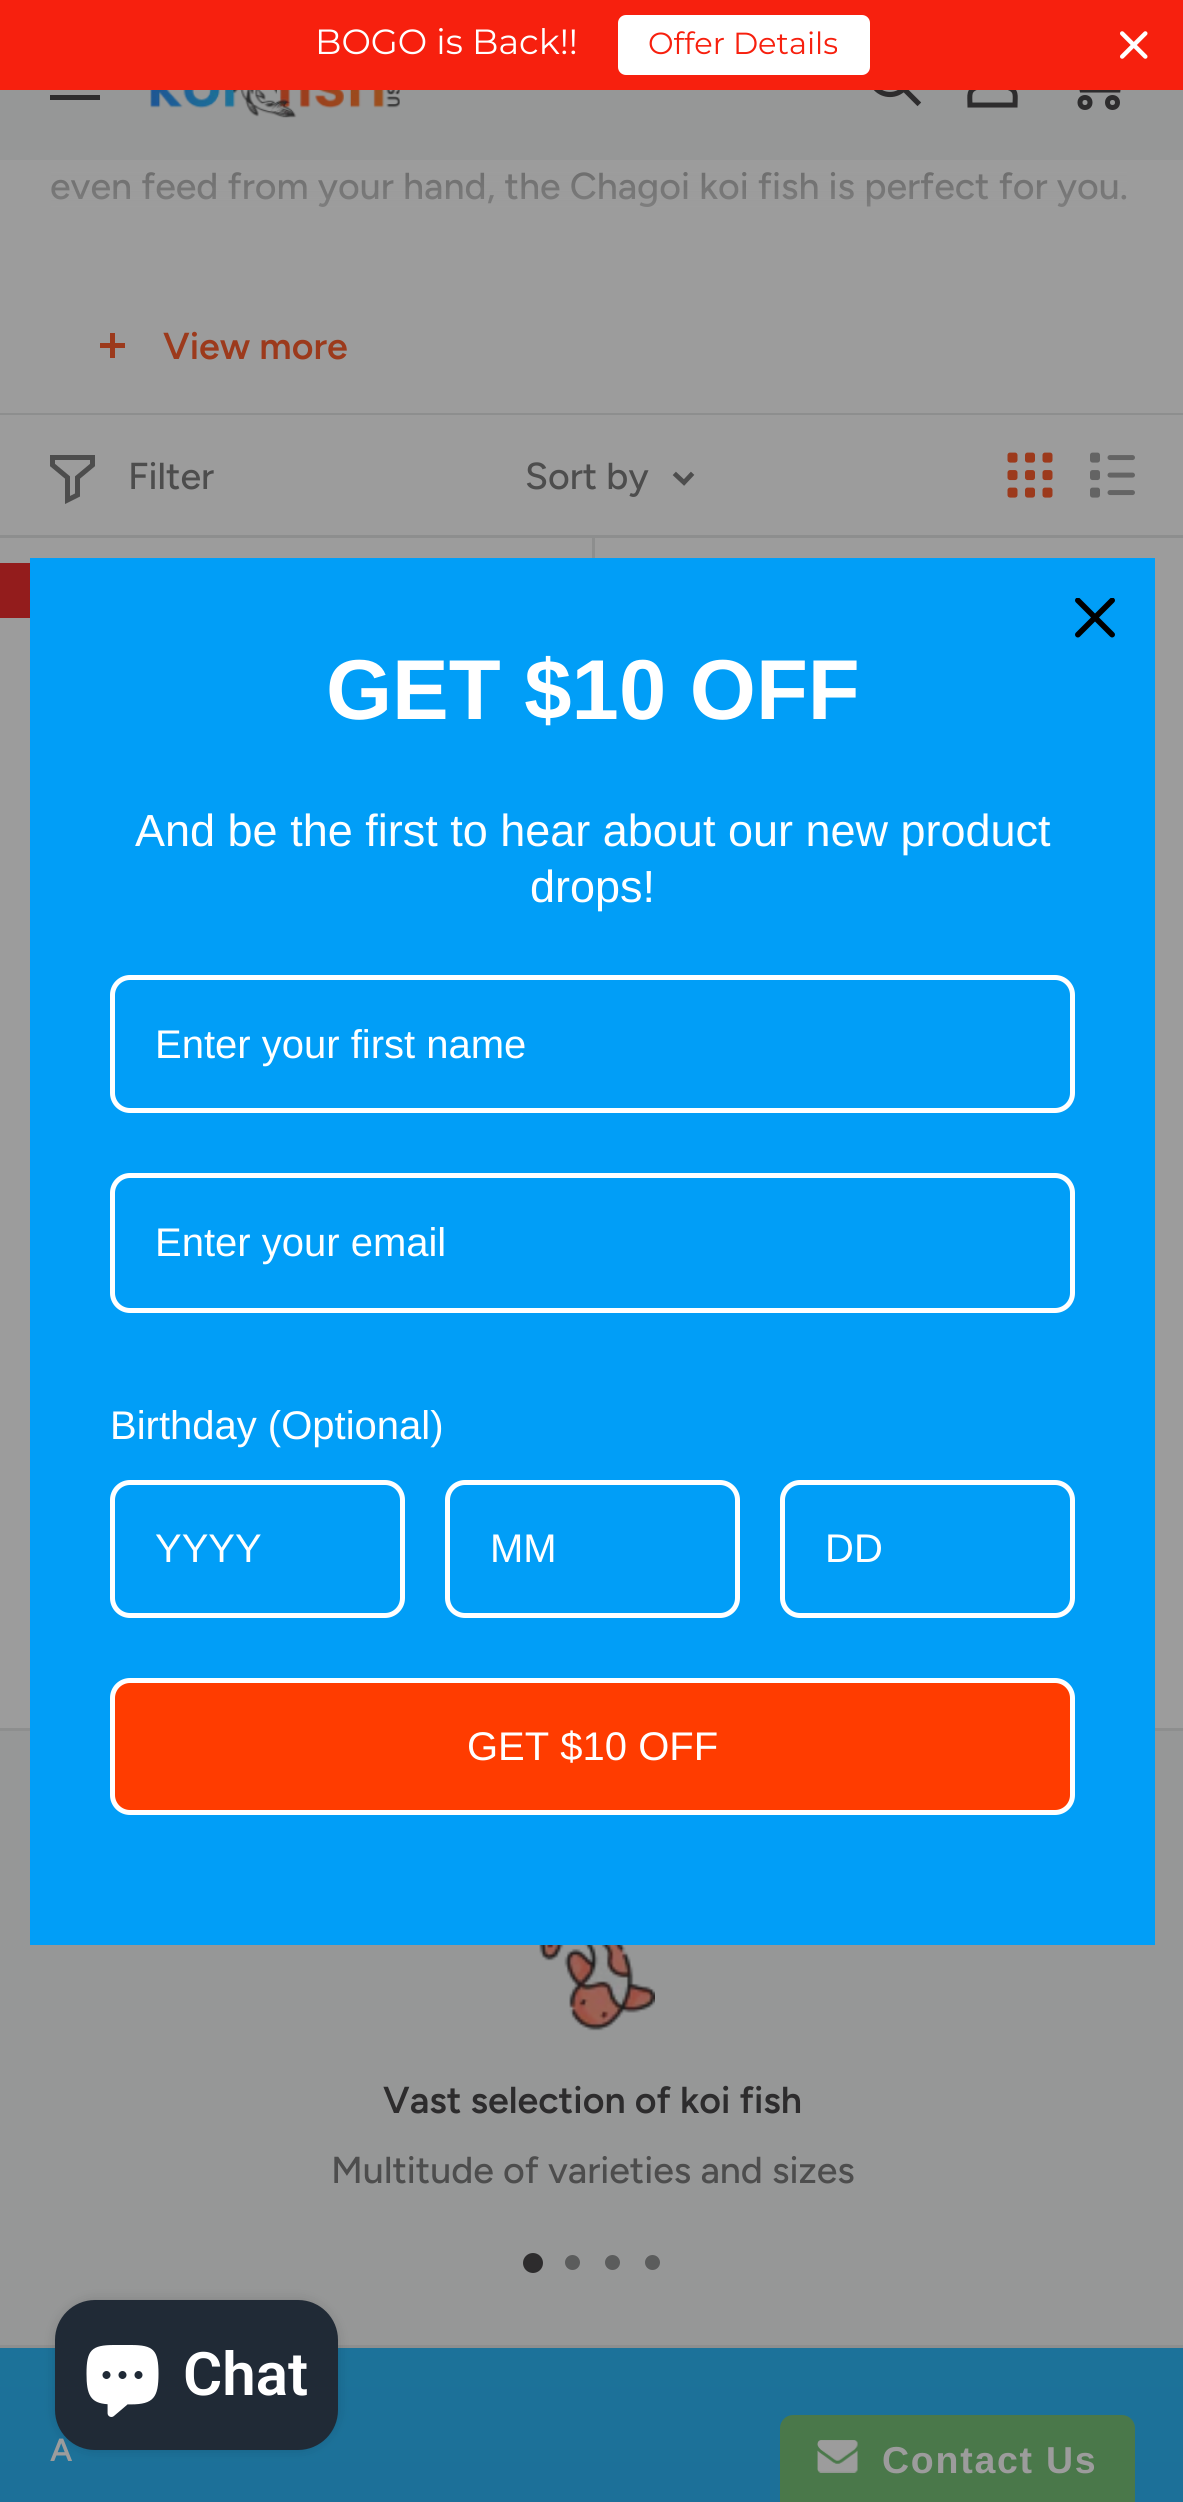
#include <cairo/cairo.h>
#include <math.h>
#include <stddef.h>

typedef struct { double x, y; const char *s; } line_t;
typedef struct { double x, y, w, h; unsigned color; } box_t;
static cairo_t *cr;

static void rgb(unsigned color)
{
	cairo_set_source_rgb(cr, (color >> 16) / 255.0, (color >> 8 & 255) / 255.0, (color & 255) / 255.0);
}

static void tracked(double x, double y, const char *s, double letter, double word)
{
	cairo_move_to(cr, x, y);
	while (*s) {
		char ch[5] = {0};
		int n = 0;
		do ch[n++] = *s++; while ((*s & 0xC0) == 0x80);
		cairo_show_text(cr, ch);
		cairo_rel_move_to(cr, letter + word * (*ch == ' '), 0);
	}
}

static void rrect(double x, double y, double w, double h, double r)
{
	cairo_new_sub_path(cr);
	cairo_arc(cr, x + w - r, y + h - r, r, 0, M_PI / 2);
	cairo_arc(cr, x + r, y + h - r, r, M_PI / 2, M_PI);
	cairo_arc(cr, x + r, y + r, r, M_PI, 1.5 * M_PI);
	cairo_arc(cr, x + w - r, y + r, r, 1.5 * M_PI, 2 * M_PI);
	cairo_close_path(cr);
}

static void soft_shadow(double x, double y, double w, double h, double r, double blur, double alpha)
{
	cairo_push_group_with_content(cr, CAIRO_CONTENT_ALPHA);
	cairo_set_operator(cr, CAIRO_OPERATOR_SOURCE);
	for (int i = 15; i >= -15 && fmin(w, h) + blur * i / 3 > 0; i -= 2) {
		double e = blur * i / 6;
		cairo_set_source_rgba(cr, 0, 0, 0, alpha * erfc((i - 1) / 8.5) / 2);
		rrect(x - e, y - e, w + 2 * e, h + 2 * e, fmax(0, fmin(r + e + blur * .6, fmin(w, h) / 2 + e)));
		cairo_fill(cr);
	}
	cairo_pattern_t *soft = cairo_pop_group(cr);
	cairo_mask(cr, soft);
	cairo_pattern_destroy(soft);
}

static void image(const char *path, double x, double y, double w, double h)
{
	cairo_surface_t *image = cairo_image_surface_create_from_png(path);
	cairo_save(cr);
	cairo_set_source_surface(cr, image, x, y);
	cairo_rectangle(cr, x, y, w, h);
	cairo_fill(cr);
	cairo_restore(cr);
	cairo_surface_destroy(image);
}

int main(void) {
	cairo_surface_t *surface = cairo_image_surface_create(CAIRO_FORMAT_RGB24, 1183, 2502);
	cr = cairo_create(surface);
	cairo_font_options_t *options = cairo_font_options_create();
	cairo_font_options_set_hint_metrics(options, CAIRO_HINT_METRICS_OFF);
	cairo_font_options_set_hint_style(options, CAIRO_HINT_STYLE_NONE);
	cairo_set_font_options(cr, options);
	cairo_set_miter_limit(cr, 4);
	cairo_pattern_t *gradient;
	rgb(0x969797);
	cairo_paint(cr);
	rgb(0x2d2c2d);
	cairo_set_fill_rule(cr, CAIRO_FILL_RULE_EVEN_ODD);
	cairo_new_path(cr);
	cairo_move_to(cr, 50, 95);
	cairo_line_to(cr, 100, 95);
	cairo_line_to(cr, 100, 100);
	cairo_line_to(cr, 50, 100);
	cairo_close_path(cr);
	cairo_move_to(cr, 50, 60);
	cairo_line_to(cr, 100, 60);
	cairo_line_to(cr, 100, 65);
	cairo_line_to(cr, 50, 65);
	cairo_close_path(cr);
	cairo_move_to(cr, 50, 78);
	cairo_line_to(cr, 100, 78);
	cairo_line_to(cr, 100, 82);
	cairo_line_to(cr, 50, 82);
	cairo_close_path(cr);
	cairo_fill(cr);
	cairo_new_path(cr);
	cairo_move_to(cr, 917.5, 102.5);
	cairo_line_to(cr, 904, 89);
	cairo_set_line_width(cr, 5.2);
	cairo_set_line_cap(cr, CAIRO_LINE_CAP_SQUARE);
	cairo_stroke(cr);
	cairo_arc(cr, 890, 75, 19.5, 0, 2 * M_PI);
	cairo_set_line_cap(cr, CAIRO_LINE_CAP_BUTT);
	cairo_stroke(cr);
	cairo_new_path(cr);
	cairo_move_to(cr, 992.5, 85);
	cairo_curve_to(cr, 997, 85, 1002, 85.5, 1006.5, 87);
	cairo_curve_to(cr, 1017.5, 90, 1015, 95.5, 1015, 105);
	cairo_line_to(cr, 970, 105);
	cairo_curve_to(cr, 970, 95, 967.5, 89.5, 979.5, 86.5);
	cairo_curve_to(cr, 983.5, 85.5, 988, 85, 992.5, 85);
	cairo_close_path(cr);
	cairo_move_to(cr, 992.5, 85);
	cairo_curve_to(cr, 977, 85, 974.5, 55, 992.5, 55);
	cairo_curve_to(cr, 1010.5, 55, 1008, 85, 992.5, 85);
	cairo_close_path(cr);
	cairo_set_line_width(cr, 5);
	cairo_stroke(cr);
	cairo_new_path(cr);
	cairo_move_to(cr, 1076, 65);
	cairo_line_to(cr, 1121.5, 65);
	cairo_line_to(cr, 1118, 90);
	cairo_line_to(cr, 1082, 90);
	cairo_line_to(cr, 1073, 52.5);
	cairo_line_to(cr, 1057.5, 52.5);
	cairo_stroke(cr);
	rgb(0xf7200e);
	cairo_rectangle(cr, 0, 0, 1183, 90);
	cairo_fill(cr);
	rgb(0xffffff);
	rrect(618, 15, 252, 60, 8);
	cairo_fill(cr);
	image("img/1.png", 1120, 31, 28, 28);
	cairo_arc(cr, 1085, 102.5, 5, 0, 2 * M_PI);
	rgb(0x2d2c2d);
	cairo_stroke(cr);
	cairo_arc(cr, 1112.5, 102.5, 5, 0, 2 * M_PI);
	cairo_stroke(cr);
	image("img/2.png", 150, 90, 250, 28);
	{
		static const box_t items[] = {
			{0, 160, 1183, 1568, 0x9c9c9c},
			{0, 1728, 1183, 3, 0x8d8e8e},
			{110, 333, 5, 25, 0x9c3a1c},
			{100, 343, 25, 5, 0x9c3a1c},
			{0, 413, 1183, 2, 0x8d8e8e},
		};
		for (size_t i = 0; i < sizeof items / sizeof *items; i++) {
			rgb(items[i].color);
			cairo_rectangle(cr, items[i].x, items[i].y, items[i].w, items[i].h);
			cairo_fill(cr);
		}
	}
	cairo_set_fill_rule(cr, CAIRO_FILL_RULE_WINDING);
	cairo_new_path(cr);
	cairo_move_to(cr, 3, 1728);
	cairo_line_to(cr, 595, 1728);
	cairo_line_to(cr, 595, 535);
	cairo_line_to(cr, 592, 535);
	cairo_line_to(cr, 592, 1728);
	cairo_close_path(cr);
	cairo_fill(cr);
	cairo_rectangle(cr, 0, 535, 1183, 3);
	cairo_fill(cr);
	cairo_new_path(cr);
	cairo_move_to(cr, 92.5, 465);
	cairo_line_to(cr, 77.5, 477.5);
	cairo_line_to(cr, 77.5, 495);
	cairo_line_to(cr, 67.5, 500);
	cairo_line_to(cr, 67.5, 477.5);
	cairo_line_to(cr, 52.5, 465);
	cairo_line_to(cr, 52.5, 457.5);
	cairo_line_to(cr, 92.5, 457.5);
	cairo_close_path(cr);
	rgb(0x4d4d4d);
	cairo_set_line_cap(cr, CAIRO_LINE_CAP_SQUARE);
	cairo_stroke(cr);
	cairo_new_path(cr);
	cairo_move_to(cr, 691, 475);
	cairo_line_to(cr, 684, 482.5);
	cairo_line_to(cr, 676, 475);
	cairo_set_line_width(cr, 4.7);
	cairo_stroke(cr);
	image("img/3.png", 1007, 452, 46, 46);
	image("img/4.png", 1090, 452, 45, 46);
	rgb(0x931c1c);
	cairo_rectangle(cr, 0, 563, 30, 55);
	cairo_fill(cr);
	rgb(0x019ef7);
	cairo_rectangle(cr, 30, 558, 1125, 1387);
	cairo_fill(cr);
	image("img/5.png", 1075, 598, 40, 40);
	rrect(112.5, 977.5, 960, 133, 17.5);
	rgb(0xffffff);
	cairo_set_line_width(cr, 5);
	cairo_set_line_cap(cr, CAIRO_LINE_CAP_BUTT);
	cairo_stroke(cr);
	rrect(112.5, 1175.5, 960, 135, 17.5);
	cairo_stroke(cr);
	rrect(112.5, 1482.5, 290, 133, 17.5);
	cairo_stroke(cr);
	rrect(447.5, 1482.5, 290, 133, 17.5);
	cairo_stroke(cr);
	rrect(782.5, 1482.5, 290, 133, 17.5);
	cairo_stroke(cr);
	rgb(0xff3c00);
	rrect(112.5, 1680.5, 960, 132, 17.5);
	cairo_fill_preserve(cr);
	rgb(0xffffff);
	cairo_stroke(cr);
	image("img/6.png", 539, 1945, 116, 86);
	rgb(0x2d2c2d);
	cairo_arc(cr, 533, 2263, 10, 0, 2 * M_PI);
	cairo_fill(cr);
	rgb(0x5b5c5c);
	cairo_arc(cr, 572.5, 2262.5, 7.5, 0, 2 * M_PI);
	cairo_fill(cr);
	cairo_arc(cr, 612.5, 2262.5, 7.5, 0, 2 * M_PI);
	cairo_fill(cr);
	cairo_arc(cr, 652.5, 2262.5, 7.5, 0, 2 * M_PI);
	cairo_fill(cr);
	gradient = cairo_pattern_create_linear(593, 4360, 593, 2200);
	cairo_pattern_add_color_stop_rgba(gradient, 0, 0.11, 0.341, 0.576, 1);
	cairo_pattern_add_color_stop_rgba(gradient, 1, 0.11, 0.455, 0.604, 1);
	cairo_set_source(cr, gradient);
	cairo_pattern_destroy(gradient);
	cairo_rectangle(cr, 0, 2348, 1183, 154);
	cairo_fill(cr);
	rgb(0x8d8e8e);
	cairo_rectangle(cr, 0, 2345, 1183, 3);
	cairo_fill(cr);
	rgb(0x000000);
	soft_shadow(55, 2300, 283, 150, 40, 6, 0.15);
	rgb(0x4a784a);
	cairo_new_path(cr);
	cairo_move_to(cr, 793, 2415);
	cairo_line_to(cr, 1122, 2415);
	cairo_curve_to(cr, 1129, 2415, 1135, 2421, 1135, 2428);
	cairo_line_to(cr, 1135, 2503);
	cairo_line_to(cr, 780, 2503);
	cairo_line_to(cr, 780, 2428);
	cairo_curve_to(cr, 780, 2421, 786, 2415, 793, 2415);
	cairo_close_path(cr);
	cairo_fill(cr);
	image("img/8.png", 817, 2440, 41, 33);
	cairo_select_font_face(cr, "Montserrat Thin", CAIRO_FONT_SLANT_NORMAL, CAIRO_FONT_WEIGHT_NORMAL);
	cairo_set_font_size(cr, 35);
	rgb(0xffffff);
	cairo_move_to(cr, 315, 54);
	cairo_show_text(cr, "BOGO is Back!!");
	cairo_set_font_size(cr, 30.5);
	rgb(0xf7200e);
	cairo_move_to(cr, 648, 54);
	cairo_show_text(cr, "Offer Details");
	cairo_select_font_face(cr, "Figtree Medium", CAIRO_FONT_SLANT_NORMAL, CAIRO_FONT_WEIGHT_NORMAL);
	cairo_set_font_size(cr, 37.5);
	rgb(0x4d4d4d);
	cairo_move_to(cr, 50, 199);
	cairo_show_text(cr, "even feed from your hand, the Chagoi koi fish is perfect for you.");
	gradient = cairo_pattern_create_linear(593, 150, 593, 275);
	cairo_pattern_add_color_stop_rgba(gradient, 0, 0.612, 0.612, 0.612, 0);
	cairo_pattern_add_color_stop_rgba(gradient, 0.15, 0.612, 0.612, 0.612, 0.4);
	cairo_pattern_add_color_stop_rgba(gradient, 1, 0.612, 0.612, 0.612, 1);
	cairo_set_source(cr, gradient);
	cairo_pattern_destroy(gradient);
	cairo_rectangle(cr, 51, 172, 1076, 35);
	cairo_fill(cr);
	cairo_select_font_face(cr, "Figtree SemiBold", CAIRO_FONT_SLANT_NORMAL, CAIRO_FONT_WEIGHT_NORMAL);
	rgb(0x9c3a1c);
	cairo_move_to(cr, 163, 359);
	cairo_show_text(cr, "View more");
	cairo_select_font_face(cr, "Figtree Medium", CAIRO_FONT_SLANT_NORMAL, CAIRO_FONT_WEIGHT_NORMAL);
	rgb(0x4d4d4d);
	cairo_move_to(cr, 128, 489);
	cairo_show_text(cr, "Filter");
	cairo_move_to(cr, 525, 489);
	cairo_show_text(cr, "Sort by");
	cairo_select_font_face(cr, "Liberation Sans", CAIRO_FONT_SLANT_NORMAL, CAIRO_FONT_WEIGHT_BOLD);
	cairo_set_font_size(cr, 85);
	rgb(0xffffff);
	cairo_move_to(cr, 326, 719);
	cairo_show_text(cr, "GET $10 OFF");
	cairo_select_font_face(cr, "Liberation Sans", CAIRO_FONT_SLANT_NORMAL, CAIRO_FONT_WEIGHT_NORMAL);
	cairo_set_font_size(cr, 45);
	cairo_move_to(cr, 135, 846);
	cairo_show_text(cr, "And be the first to hear about our new product");
	cairo_move_to(cr, 530, 902);
	cairo_show_text(cr, "drops!");
	cairo_set_font_size(cr, 40);
	{
		static const line_t items[] = {
			{155, 1058, "Enter your first name"},
			{155, 1256, "Enter your email"},
			{110, 1439, "Birthday (Optional)"},
			{155, 1562, "YYYY"},
			{490, 1562, "MM"},
			{825, 1562, "DD"},
			{467, 1760, "GET $10 OFF"},
		};
		for (size_t i = 0; i < sizeof items / sizeof *items; i++) {
			cairo_move_to(cr, items[i].x, items[i].y);
			cairo_show_text(cr, items[i].s);
		}
	}
	cairo_select_font_face(cr, "Figtree SemiBold", CAIRO_FONT_SLANT_NORMAL, CAIRO_FONT_WEIGHT_NORMAL);
	cairo_set_font_size(cr, 37.5);
	rgb(0x2d2c2d);
	cairo_move_to(cr, 383, 2113);
	cairo_show_text(cr, "Vast selection of koi fish");
	cairo_select_font_face(cr, "Figtree Medium", CAIRO_FONT_SLANT_NORMAL, CAIRO_FONT_WEIGHT_NORMAL);
	rgb(0x4d4d4d);
	cairo_move_to(cr, 331, 2183);
	cairo_show_text(cr, "Multitude of varieties and sizes");
	cairo_select_font_face(cr, "Figtree SemiBold", CAIRO_FONT_SLANT_NORMAL, CAIRO_FONT_WEIGHT_NORMAL);
	cairo_set_font_size(cr, 32);
	rgb(0x9c9c9c);
	cairo_move_to(cr, 50, 2461);
	cairo_show_text(cr, "A");
	rgb(0x202a36);
	rrect(55, 2300, 283, 150, 40);
	cairo_fill(cr);
	cairo_select_font_face(cr, "Roboto SemiBold", CAIRO_FONT_SLANT_NORMAL, CAIRO_FONT_WEIGHT_NORMAL);
	cairo_set_font_size(cr, 60);
	rgb(0xffffff);
	cairo_move_to(cr, 183, 2395);
	cairo_show_text(cr, "Chat");
	image("img/7.png", 86, 2345, 73, 72);
	cairo_select_font_face(cr, "Liberation Sans", CAIRO_FONT_SLANT_NORMAL, CAIRO_FONT_WEIGHT_BOLD);
	cairo_set_font_size(cr, 37.5);
	rgb(0x9c9c9c);
	tracked(882, 2473, "Contact Us", 1.75, 0);
	cairo_surface_write_to_png(surface, "page.png");
	cairo_font_options_destroy(options);
	cairo_destroy(cr);
	cairo_surface_destroy(surface);
	return 0;
}
